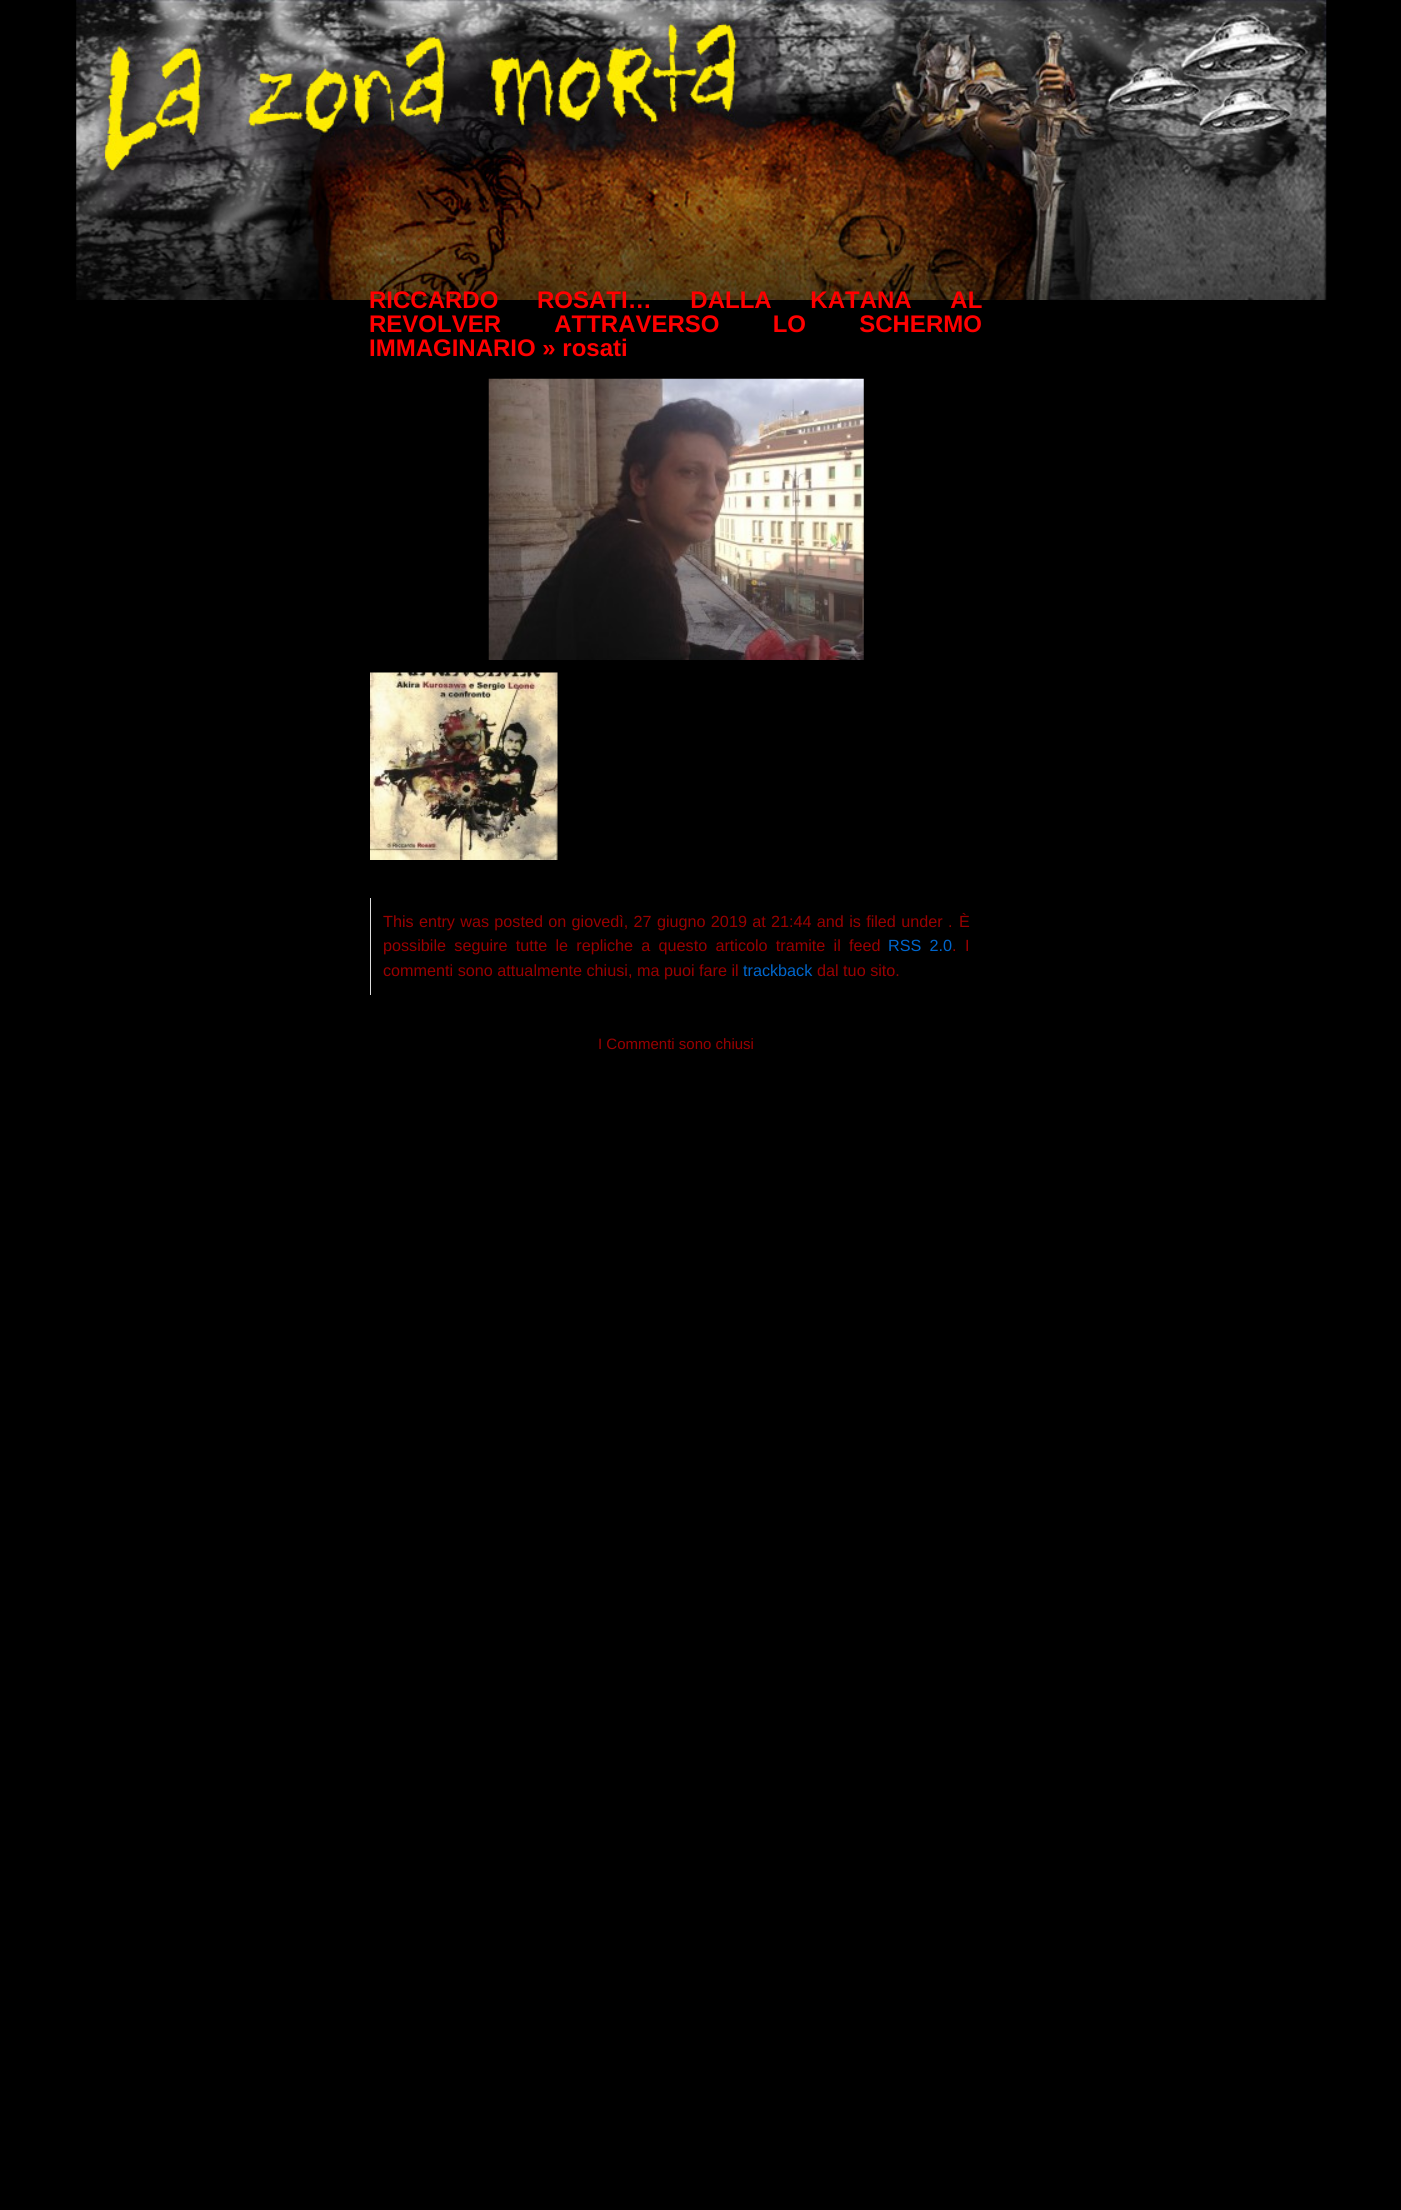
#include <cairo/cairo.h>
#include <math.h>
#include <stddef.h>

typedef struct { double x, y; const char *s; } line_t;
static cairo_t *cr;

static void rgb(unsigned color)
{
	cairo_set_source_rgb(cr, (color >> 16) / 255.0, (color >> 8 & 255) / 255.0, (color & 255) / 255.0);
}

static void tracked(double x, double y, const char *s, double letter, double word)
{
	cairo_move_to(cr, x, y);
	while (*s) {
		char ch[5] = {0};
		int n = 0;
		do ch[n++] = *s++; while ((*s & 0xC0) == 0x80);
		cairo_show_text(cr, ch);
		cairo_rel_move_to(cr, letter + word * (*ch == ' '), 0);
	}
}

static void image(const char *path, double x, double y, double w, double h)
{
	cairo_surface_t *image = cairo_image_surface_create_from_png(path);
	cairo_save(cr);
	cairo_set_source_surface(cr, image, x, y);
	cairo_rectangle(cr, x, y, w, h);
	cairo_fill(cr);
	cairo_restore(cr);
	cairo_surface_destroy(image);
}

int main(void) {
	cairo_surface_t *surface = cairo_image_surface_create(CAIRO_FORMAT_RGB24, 1401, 2210);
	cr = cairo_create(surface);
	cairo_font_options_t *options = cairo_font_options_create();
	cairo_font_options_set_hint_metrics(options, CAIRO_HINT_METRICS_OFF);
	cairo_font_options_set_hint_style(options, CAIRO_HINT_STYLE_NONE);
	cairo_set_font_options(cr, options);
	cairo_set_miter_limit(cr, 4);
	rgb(0x000000);
	cairo_paint(cr);
	image("img/1.png", 76, 0, 1251, 300);
	image("img/2.png", 488, 378, 376, 282);
	image("img/3.png", 370, 672, 188, 188);
	rgb(0xdddddd);
	cairo_rectangle(cr, 370, 898, 1, 97);
	cairo_fill(cr);
	cairo_select_font_face(cr, "Liberation Sans", CAIRO_FONT_SLANT_NORMAL, CAIRO_FONT_WEIGHT_BOLD);
	cairo_set_font_size(cr, 24);
	rgb(0xff0000);
	tracked(369, 308, "RICCARDO ROSATI… DALLA KATANA AL", 0, 32);
	tracked(369, 332, "REVOLVER ATTRAVERSO LO SCHERMO", 0, 46.5);
	cairo_move_to(cr, 369, 356);
	cairo_show_text(cr, "IMMAGINARIO » rosati");
	cairo_select_font_face(cr, "Liberation Sans", CAIRO_FONT_SLANT_NORMAL, CAIRO_FONT_WEIGHT_NORMAL);
	cairo_set_font_size(cr, 16.2);
	rgb(0x990000);
	tracked(383, 927, "This entry was posted on giovedì, 27 giugno 2019 at 21:44 and is filed under .", 0, 0.8);
	cairo_move_to(cr, 959, 927);
	cairo_show_text(cr, "È");
	tracked(383, 951, "possibile seguire tutte le repliche a questo articolo tramite il feed", 0, 3.75);
	rgb(0x0066cc);
	tracked(888, 951, "RSS 2.0", 0, 3.75);
	rgb(0x990000);
	{
		static const line_t items[] = {
			{952, 951, "."},
			{965, 951, "I"},
			{383, 976, "commenti sono attualmente chiusi, ma puoi fare il"},
		};
		for (size_t i = 0; i < sizeof items / sizeof *items; i++) {
			cairo_move_to(cr, items[i].x, items[i].y);
			cairo_show_text(cr, items[i].s);
		}
	}
	rgb(0x0066cc);
	cairo_move_to(cr, 743, 976);
	cairo_show_text(cr, "trackback");
	rgb(0x990000);
	cairo_move_to(cr, 817, 976);
	cairo_show_text(cr, "dal tuo sito.");
	cairo_set_font_size(cr, 15);
	cairo_move_to(cr, 598, 1049);
	cairo_show_text(cr, "I Commenti sono chiusi");
	cairo_surface_write_to_png(surface, "page.png");
	cairo_font_options_destroy(options);
	cairo_destroy(cr);
	cairo_surface_destroy(surface);
	return 0;
}
